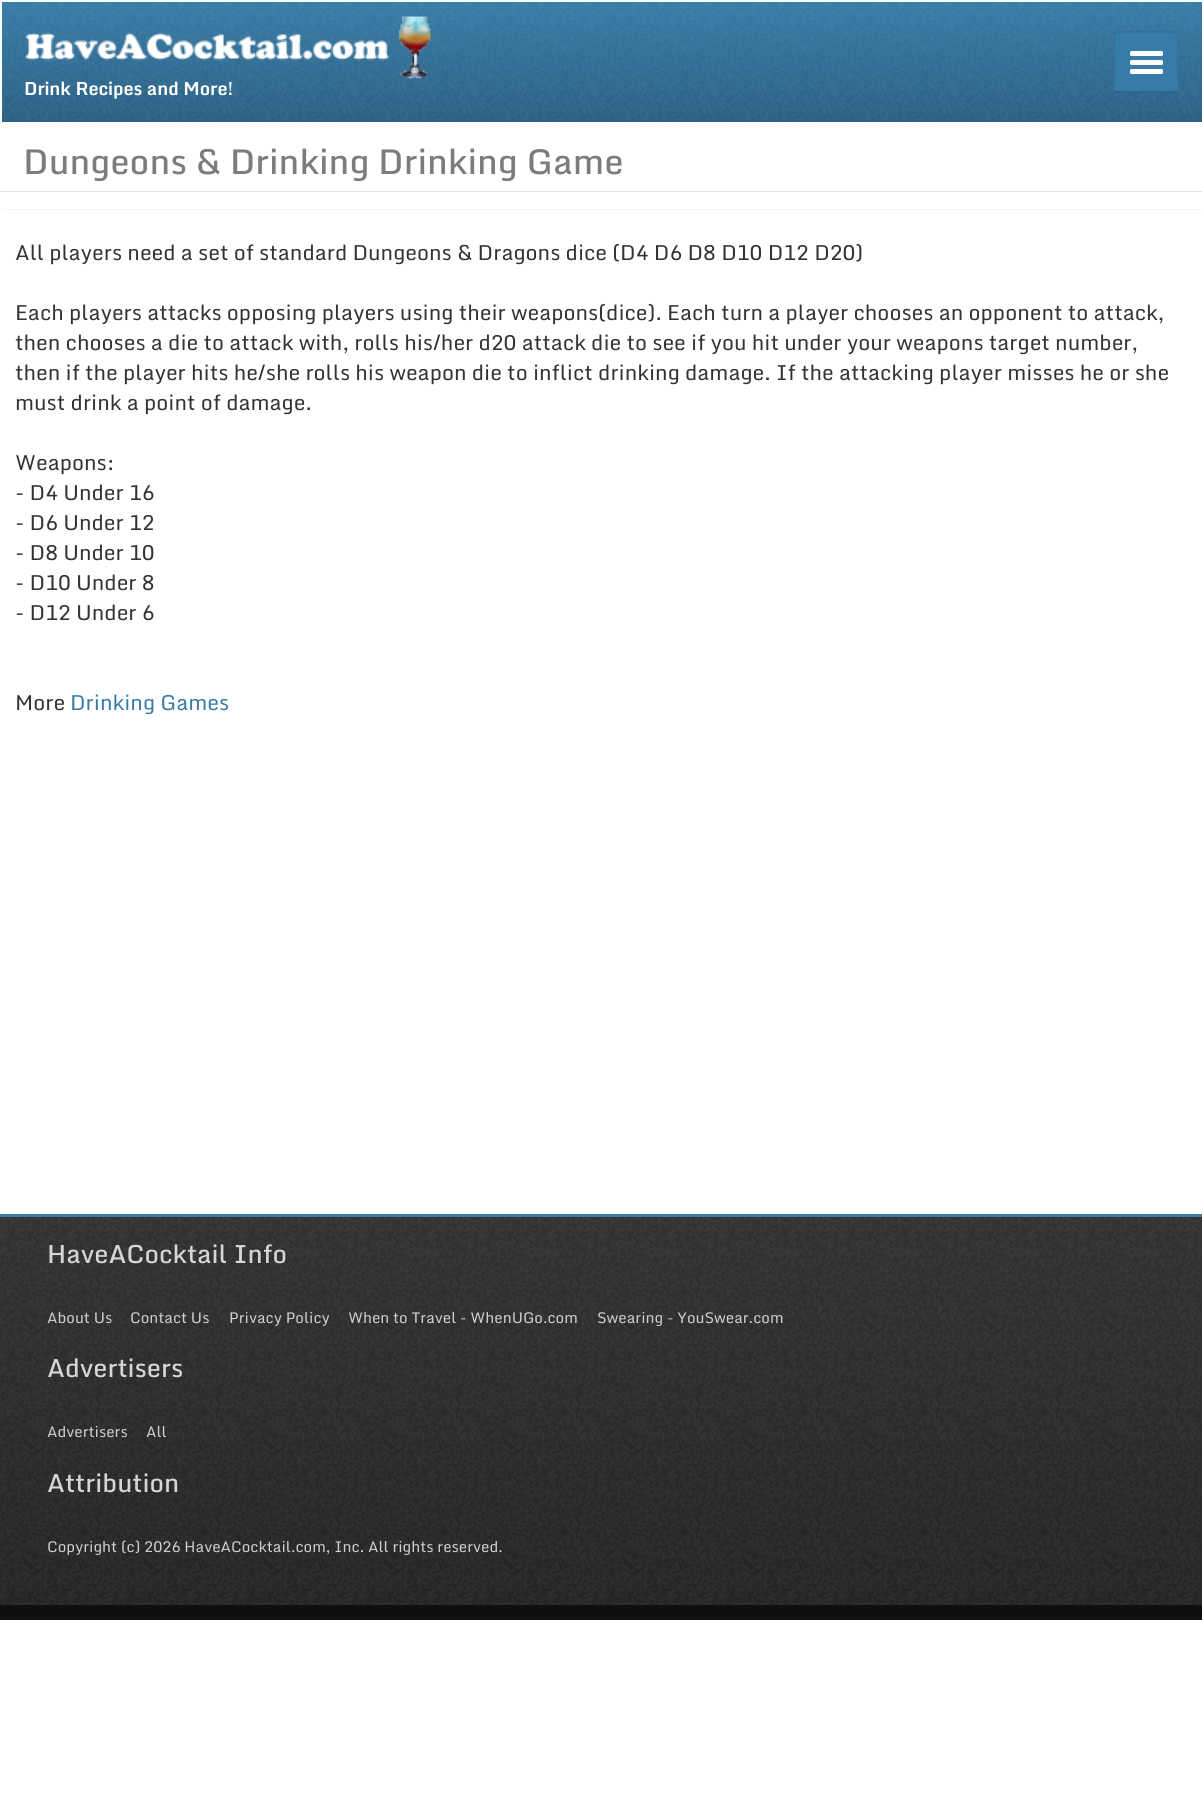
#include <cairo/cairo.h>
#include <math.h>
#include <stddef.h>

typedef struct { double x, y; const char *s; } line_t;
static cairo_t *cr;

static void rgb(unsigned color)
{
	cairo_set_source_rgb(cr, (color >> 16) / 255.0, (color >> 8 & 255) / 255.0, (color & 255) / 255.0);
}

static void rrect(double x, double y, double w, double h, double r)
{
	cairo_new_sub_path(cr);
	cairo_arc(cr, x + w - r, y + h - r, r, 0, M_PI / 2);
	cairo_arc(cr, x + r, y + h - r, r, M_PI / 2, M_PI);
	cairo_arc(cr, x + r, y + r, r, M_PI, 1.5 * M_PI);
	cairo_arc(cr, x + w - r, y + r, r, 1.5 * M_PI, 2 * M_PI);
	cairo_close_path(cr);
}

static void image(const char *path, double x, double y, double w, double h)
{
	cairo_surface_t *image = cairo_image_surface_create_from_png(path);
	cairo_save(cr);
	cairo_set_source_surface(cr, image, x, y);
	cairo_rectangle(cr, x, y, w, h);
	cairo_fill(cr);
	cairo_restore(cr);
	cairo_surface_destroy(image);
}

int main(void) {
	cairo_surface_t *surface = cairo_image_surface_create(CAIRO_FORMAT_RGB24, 1202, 1808);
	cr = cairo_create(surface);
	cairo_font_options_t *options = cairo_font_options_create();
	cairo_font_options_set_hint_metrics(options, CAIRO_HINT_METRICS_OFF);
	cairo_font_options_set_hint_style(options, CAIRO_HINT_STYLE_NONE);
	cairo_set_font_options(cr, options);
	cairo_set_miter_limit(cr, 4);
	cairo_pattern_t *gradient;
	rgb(0xffffff);
	cairo_paint(cr);
	gradient = cairo_pattern_create_linear(602, 1.5, 602, 122);
	cairo_pattern_add_color_stop_rgba(gradient, 0, 0.216, 0.486, 0.659, 1);
	cairo_pattern_add_color_stop_rgba(gradient, 1, 0.165, 0.376, 0.51, 1);
	cairo_set_source(cr, gradient);
	cairo_pattern_destroy(gradient);
	cairo_rectangle(cr, 2, 2, 1200, 120);
	cairo_fill(cr);
	image("img/1.png", 2, 2, 1200, 120);
	image("img/2.png", 25, 16, 406, 63);
	rgb(0x377ca8);
	rrect(1113, 32, 66, 61, 5);
	cairo_fill(cr);
	cairo_new_path(cr);
	cairo_move_to(cr, 1177, 91);
	cairo_line_to(cr, 1175, 92);
	cairo_line_to(cr, 1117, 92);
	cairo_line_to(cr, 1115, 91);
	cairo_set_source_rgba(cr, 0, 0, 0, 0.25);
	cairo_set_line_width(cr, 1.5);
	cairo_stroke(cr);
	cairo_new_path(cr);
	cairo_move_to(cr, 1115, 91);
	cairo_curve_to(cr, 1112.5, 88.5, 1114, 81, 1114, 80);
	cairo_line_to(cr, 1114, 45);
	cairo_curve_to(cr, 1114, 30.5, 1112.5, 32, 1127, 32);
	cairo_line_to(cr, 1165, 32);
	cairo_curve_to(cr, 1179.5, 32, 1178, 30.5, 1178, 45);
	cairo_line_to(cr, 1178, 80);
	cairo_curve_to(cr, 1178, 81, 1179.5, 88.5, 1177, 91);
	cairo_set_source_rgba(cr, 0, 0, 0, 0.1);
	cairo_stroke(cr);
	rgb(0xffffff);
	rrect(1130, 51, 33, 5, 1.5);
	cairo_fill(cr);
	rrect(1130, 60, 33, 5, 1.5);
	cairo_fill(cr);
	rrect(1130, 69, 33, 5, 1.5);
	cairo_fill(cr);
	rgb(0xe1e1e1);
	cairo_rectangle(cr, 0, 191, 1202, 1);
	cairo_fill(cr);
	rgb(0xf2f2f2);
	cairo_new_path(cr);
	cairo_move_to(cr, 6, 210);
	cairo_line_to(cr, 1197, 210);
	cairo_curve_to(cr, 1199, 210, 1202, 212, 1202, 214);
	cairo_curve_to(cr, 1202, 211, 1200, 209, 1197, 209);
	cairo_line_to(cr, 7, 209);
	cairo_curve_to(cr, 4, 209, 2, 211, 2, 214);
	cairo_curve_to(cr, 2, 212, 4, 210, 6, 210);
	cairo_close_path(cr);
	cairo_fill(cr);
	rrect(1, 208, 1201, 562, 5);
	rgb(0xffffff);
	cairo_set_line_width(cr, 2);
	cairo_stroke(cr);
	gradient = cairo_pattern_create_linear(602, 1217, 602, 1605);
	cairo_pattern_add_color_stop_rgba(gradient, 0, 0.192, 0.192, 0.192, 1);
	cairo_pattern_add_color_stop_rgba(gradient, 1, 0.141, 0.141, 0.141, 1);
	cairo_set_source(cr, gradient);
	cairo_pattern_destroy(gradient);
	cairo_rectangle(cr, 0, 1217, 1202, 388);
	cairo_fill(cr);
	rgb(0x377ca8);
	cairo_rectangle(cr, 0, 1214, 1202, 3);
	cairo_fill(cr);
	image("img/3.png", 0, 1216, 1202, 389);
	rgb(0x0e0f0f);
	cairo_rectangle(cr, 0, 1605, 1202, 15);
	cairo_fill(cr);
	cairo_select_font_face(cr, "Monda", CAIRO_FONT_SLANT_NORMAL, CAIRO_FONT_WEIGHT_BOLD);
	cairo_set_font_size(cr, 18);
	rgb(0xffffff);
	cairo_move_to(cr, 24, 95);
	cairo_show_text(cr, "Drink Recipes and More!");
	cairo_select_font_face(cr, "Monda Medium", CAIRO_FONT_SLANT_NORMAL, CAIRO_FONT_WEIGHT_NORMAL);
	cairo_set_font_size(cr, 34.5);
	rgb(0x7c7c7c);
	cairo_move_to(cr, 23, 174);
	cairo_show_text(cr, "Dungeons & Drinking Drinking Game");
	cairo_select_font_face(cr, "Monda", CAIRO_FONT_SLANT_NORMAL, CAIRO_FONT_WEIGHT_NORMAL);
	cairo_set_font_size(cr, 21);
	rgb(0x333333);
	{
		static const line_t items[] = {
			{15, 260, "All players need a set of standard Dungeons & Dragons dice (D4 D6 D8 D10 D12 D20)"},
			{15, 320, "Each players attacks opposing players using their weapons(dice). Each turn a player chooses an opponent to attack,"},
			{15, 350, "then chooses a die to attack with, rolls his/her d20 attack die to see if you hit under your weapons target number,"},
			{15, 380, "then if the player hits he/she rolls his weapon die to inflict drinking damage. If the attacking player misses he or she"},
			{15, 410, "must drink a point of damage."},
			{15, 470, "Weapons:"},
			{15, 500, "- D4 Under 16"},
			{15, 530, "- D6 Under 12"},
			{15, 560, "- D8 Under 10"},
			{15, 590, "- D10 Under 8"},
			{15, 620, "- D12 Under 6"},
			{15, 710, "More"},
		};
		for (size_t i = 0; i < sizeof items / sizeof *items; i++) {
			cairo_move_to(cr, items[i].x, items[i].y);
			cairo_show_text(cr, items[i].s);
		}
	}
	rgb(0x377ca8);
	cairo_move_to(cr, 70, 710);
	cairo_show_text(cr, "Drinking Games");
	cairo_select_font_face(cr, "Monda Medium", CAIRO_FONT_SLANT_NORMAL, CAIRO_FONT_WEIGHT_NORMAL);
	cairo_set_font_size(cr, 25.25);
	rgb(0xd6d6d6);
	cairo_move_to(cr, 47, 1263);
	cairo_show_text(cr, "HaveACocktail Info");
	cairo_select_font_face(cr, "Monda", CAIRO_FONT_SLANT_NORMAL, CAIRO_FONT_WEIGHT_NORMAL);
	cairo_set_font_size(cr, 15);
	rgb(0xcfcfcf);
	{
		static const line_t items[] = {
			{47, 1323, "About Us"},
			{130, 1323, "Contact Us"},
			{229, 1323, "Privacy Policy"},
			{348, 1323, "When to Travel - WhenUGo.com"},
			{597, 1323, "Swearing - YouSwear.com"},
		};
		for (size_t i = 0; i < sizeof items / sizeof *items; i++) {
			cairo_move_to(cr, items[i].x, items[i].y);
			cairo_show_text(cr, items[i].s);
		}
	}
	cairo_select_font_face(cr, "Monda Medium", CAIRO_FONT_SLANT_NORMAL, CAIRO_FONT_WEIGHT_NORMAL);
	cairo_set_font_size(cr, 25.25);
	rgb(0xd6d6d6);
	cairo_move_to(cr, 47, 1377);
	cairo_show_text(cr, "Advertisers");
	cairo_select_font_face(cr, "Monda", CAIRO_FONT_SLANT_NORMAL, CAIRO_FONT_WEIGHT_NORMAL);
	cairo_set_font_size(cr, 15);
	rgb(0xcfcfcf);
	cairo_move_to(cr, 47, 1437);
	cairo_show_text(cr, "Advertisers");
	cairo_move_to(cr, 146, 1437);
	cairo_show_text(cr, "All");
	cairo_select_font_face(cr, "Monda Medium", CAIRO_FONT_SLANT_NORMAL, CAIRO_FONT_WEIGHT_NORMAL);
	cairo_set_font_size(cr, 25.25);
	rgb(0xd6d6d6);
	cairo_move_to(cr, 47, 1492);
	cairo_show_text(cr, "Attribution");
	cairo_select_font_face(cr, "Monda", CAIRO_FONT_SLANT_NORMAL, CAIRO_FONT_WEIGHT_NORMAL);
	cairo_set_font_size(cr, 15);
	rgb(0xcfcfcf);
	cairo_move_to(cr, 47, 1552);
	cairo_show_text(cr, "Copyright (c) 2026 HaveACocktail.com, Inc. All rights reserved.");
	cairo_surface_write_to_png(surface, "page.png");
	cairo_font_options_destroy(options);
	cairo_destroy(cr);
	cairo_surface_destroy(surface);
	return 0;
}
